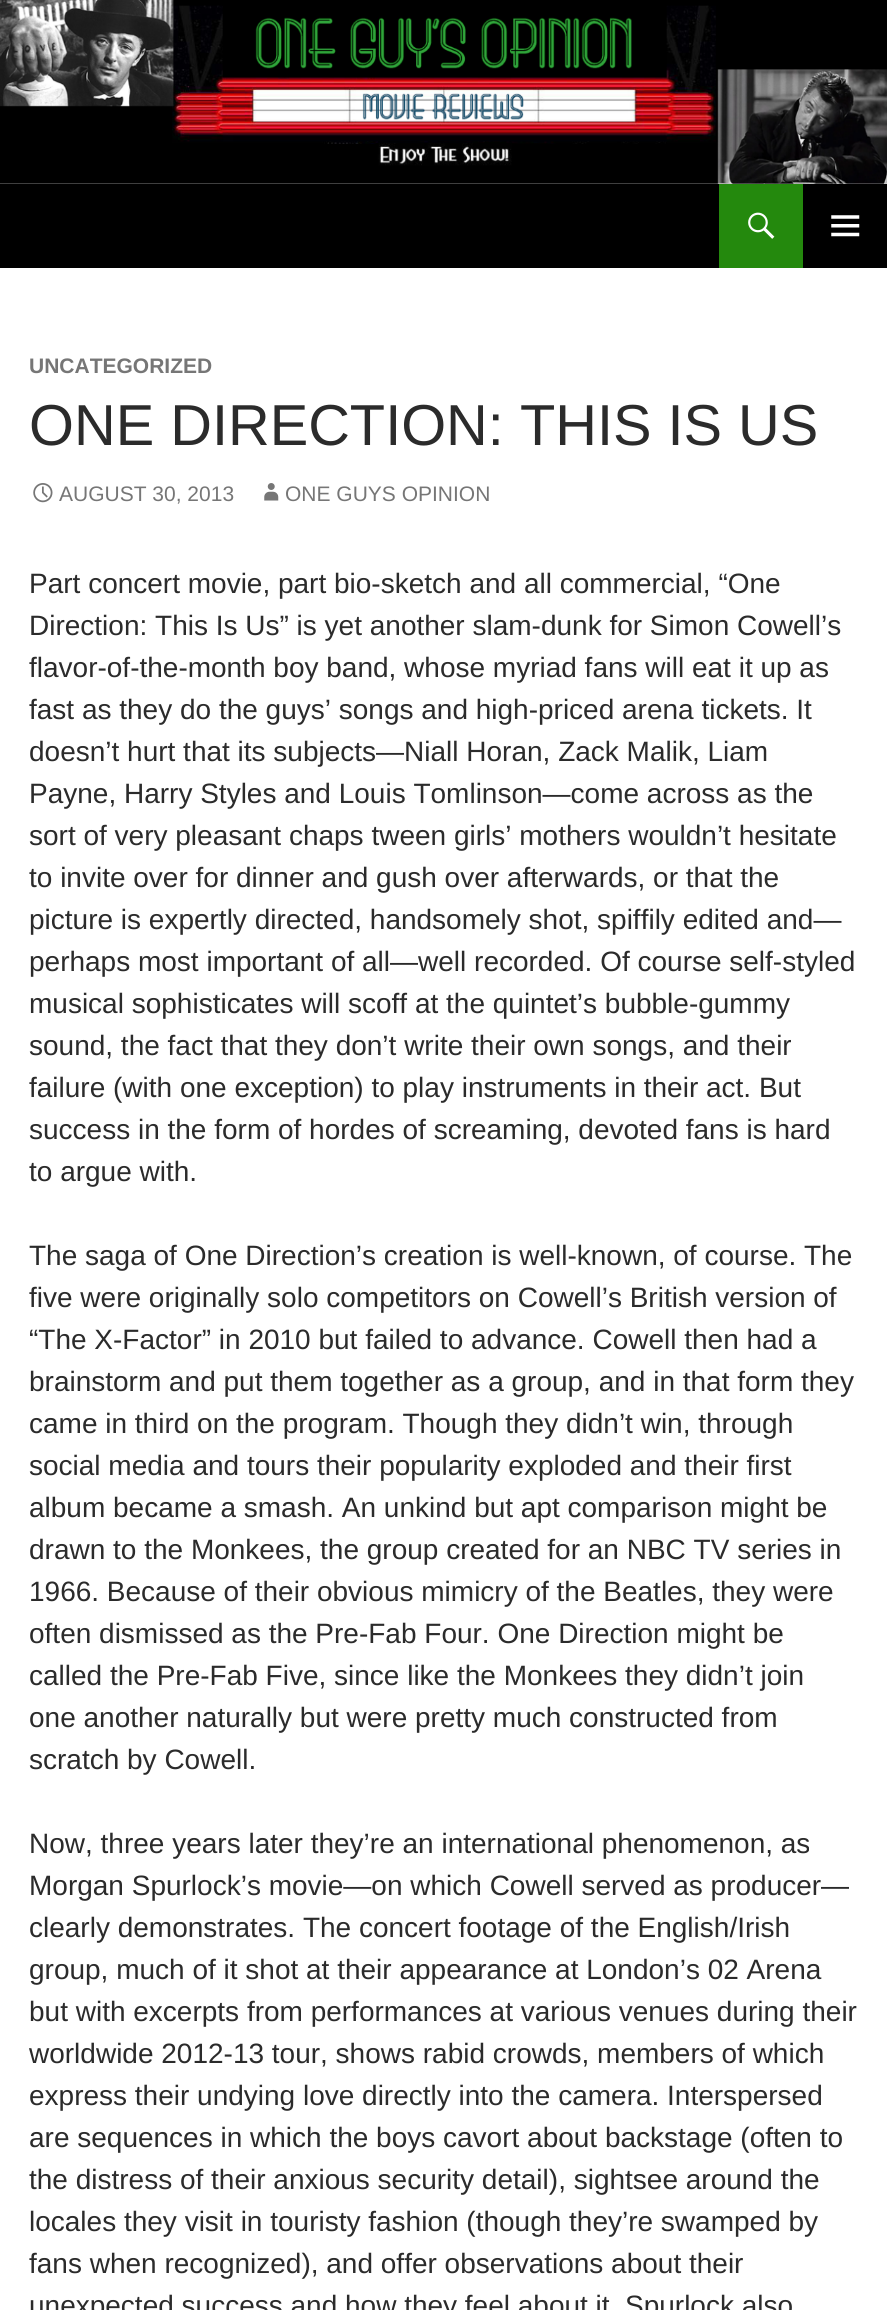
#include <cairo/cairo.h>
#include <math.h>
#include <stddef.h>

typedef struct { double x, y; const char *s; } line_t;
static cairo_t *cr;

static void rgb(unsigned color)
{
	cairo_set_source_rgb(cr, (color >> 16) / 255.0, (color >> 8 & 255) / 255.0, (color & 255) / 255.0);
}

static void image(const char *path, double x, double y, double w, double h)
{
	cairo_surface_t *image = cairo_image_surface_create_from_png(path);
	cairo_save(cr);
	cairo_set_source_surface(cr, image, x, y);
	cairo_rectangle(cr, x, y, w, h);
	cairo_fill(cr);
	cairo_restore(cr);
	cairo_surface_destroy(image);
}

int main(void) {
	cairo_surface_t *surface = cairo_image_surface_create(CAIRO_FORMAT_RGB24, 887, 2310);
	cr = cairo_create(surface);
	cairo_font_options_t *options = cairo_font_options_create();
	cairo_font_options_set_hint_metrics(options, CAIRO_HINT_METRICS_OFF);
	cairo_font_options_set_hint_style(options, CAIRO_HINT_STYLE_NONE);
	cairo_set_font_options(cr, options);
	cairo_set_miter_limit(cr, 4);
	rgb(0xffffff);
	cairo_paint(cr);
	image("img/1.png", 0, 0, 887, 184);
	rgb(0x000000);
	cairo_rectangle(cr, 0, 184, 887, 84);
	cairo_fill(cr);
	rgb(0x24890d);
	cairo_rectangle(cr, 719, 184, 84, 84);
	cairo_fill(cr);
	image("img/2.png", 748, 212, 27, 27);
	image("img/3.png", 831, 215, 29, 22);
	image("img/4.png", 33, 483, 20, 20);
	image("img/5.png", 264, 483, 15, 18);
	cairo_select_font_face(cr, "Liberation Sans", CAIRO_FONT_SLANT_NORMAL, CAIRO_FONT_WEIGHT_BOLD);
	cairo_set_font_size(cr, 21);
	rgb(0x767676);
	cairo_move_to(cr, 29, 373);
	cairo_show_text(cr, "UNCATEGORIZED");
	cairo_select_font_face(cr, "Liberation Sans", CAIRO_FONT_SLANT_NORMAL, CAIRO_FONT_WEIGHT_NORMAL);
	cairo_set_font_size(cr, 57.75);
	rgb(0x2b2b2b);
	cairo_move_to(cr, 29, 445);
	cairo_show_text(cr, "ONE DIRECTION: THIS IS US");
	cairo_set_font_size(cr, 21);
	rgb(0x767676);
	cairo_move_to(cr, 59, 501);
	cairo_show_text(cr, "AUGUST 30, 2013");
	cairo_move_to(cr, 285, 501);
	cairo_show_text(cr, "ONE GUYS OPINION");
	cairo_set_font_size(cr, 28);
	rgb(0x2b2b2b);
	{
		static const line_t items[] = {
			{29, 593, "Part concert movie, part bio-sketch and all commercial, “One"},
			{29, 635, "Direction: This Is Us” is yet another slam-dunk for Simon Cowell’s"},
			{29, 677, "flavor-of-the-month boy band, whose myriad fans will eat it up as"},
			{29, 719, "fast as they do the guys’ songs and high-priced arena tickets. It"},
			{29, 761, "doesn’t hurt that its subjects—Niall Horan, Zack Malik, Liam"},
			{29, 803, "Payne, Harry Styles and Louis Tomlinson—come across as the"},
			{29, 845, "sort of very pleasant chaps tween girls’ mothers wouldn’t hesitate"},
			{29, 887, "to invite over for dinner and gush over afterwards, or that the"},
			{29, 929, "picture is expertly directed, handsomely shot, spiffily edited and—"},
			{29, 971, "perhaps most important of all—well recorded. Of course self-styled"},
			{29, 1013, "musical sophisticates will scoff at the quintet’s bubble-gummy"},
			{29, 1055, "sound, the fact that they don’t write their own songs, and their"},
			{29, 1097, "failure (with one exception) to play instruments in their act. But"},
			{29, 1139, "success in the form of hordes of screaming, devoted fans is hard"},
			{29, 1181, "to argue with."},
			{29, 1265, "The saga of One Direction’s creation is well-known, of course. The"},
			{29, 1307, "five were originally solo competitors on Cowell’s British version of"},
			{29, 1349, "“The X-Factor” in 2010 but failed to advance. Cowell then had a"},
			{29, 1391, "brainstorm and put them together as a group, and in that form they"},
			{29, 1433, "came in third on the program. Though they didn’t win, through"},
			{29, 1475, "social media and tours their popularity exploded and their first"},
			{29, 1517, "album became a smash. An unkind but apt comparison might be"},
			{29, 1559, "drawn to the Monkees, the group created for an NBC TV series in"},
			{29, 1601, "1966. Because of their obvious mimicry of the Beatles, they were"},
			{29, 1643, "often dismissed as the Pre-Fab Four. One Direction might be"},
			{29, 1685, "called the Pre-Fab Five, since like the Monkees they didn’t join"},
			{29, 1727, "one another naturally but were pretty much constructed from"},
			{29, 1769, "scratch by Cowell."},
			{29, 1853, "Now, three years later they’re an international phenomenon, as"},
			{29, 1895, "Morgan Spurlock’s movie—on which Cowell served as producer—"},
			{29, 1937, "clearly demonstrates. The concert footage of the English/Irish"},
			{29, 1979, "group, much of it shot at their appearance at London’s 02 Arena"},
			{29, 2021, "but with excerpts from performances at various venues during their"},
			{29, 2063, "worldwide 2012-13 tour, shows rabid crowds, members of which"},
			{29, 2105, "express their undying love directly into the camera. Interspersed"},
			{29, 2147, "are sequences in which the boys cavort about backstage (often to"},
			{29, 2189, "the distress of their anxious security detail), sightsee around the"},
			{29, 2231, "locales they visit in touristy fashion (though they’re swamped by"},
			{29, 2273, "fans when recognized), and offer observations about their"},
			{29, 2315, "unexpected success and how they feel about it"},
			{625, 2315, "Spurlock also"},
		};
		for (size_t i = 0; i < sizeof items / sizeof *items; i++) {
			cairo_move_to(cr, items[i].x, items[i].y);
			cairo_show_text(cr, items[i].s);
		}
	}
	cairo_surface_write_to_png(surface, "page.png");
	cairo_font_options_destroy(options);
	cairo_destroy(cr);
	cairo_surface_destroy(surface);
	return 0;
}
